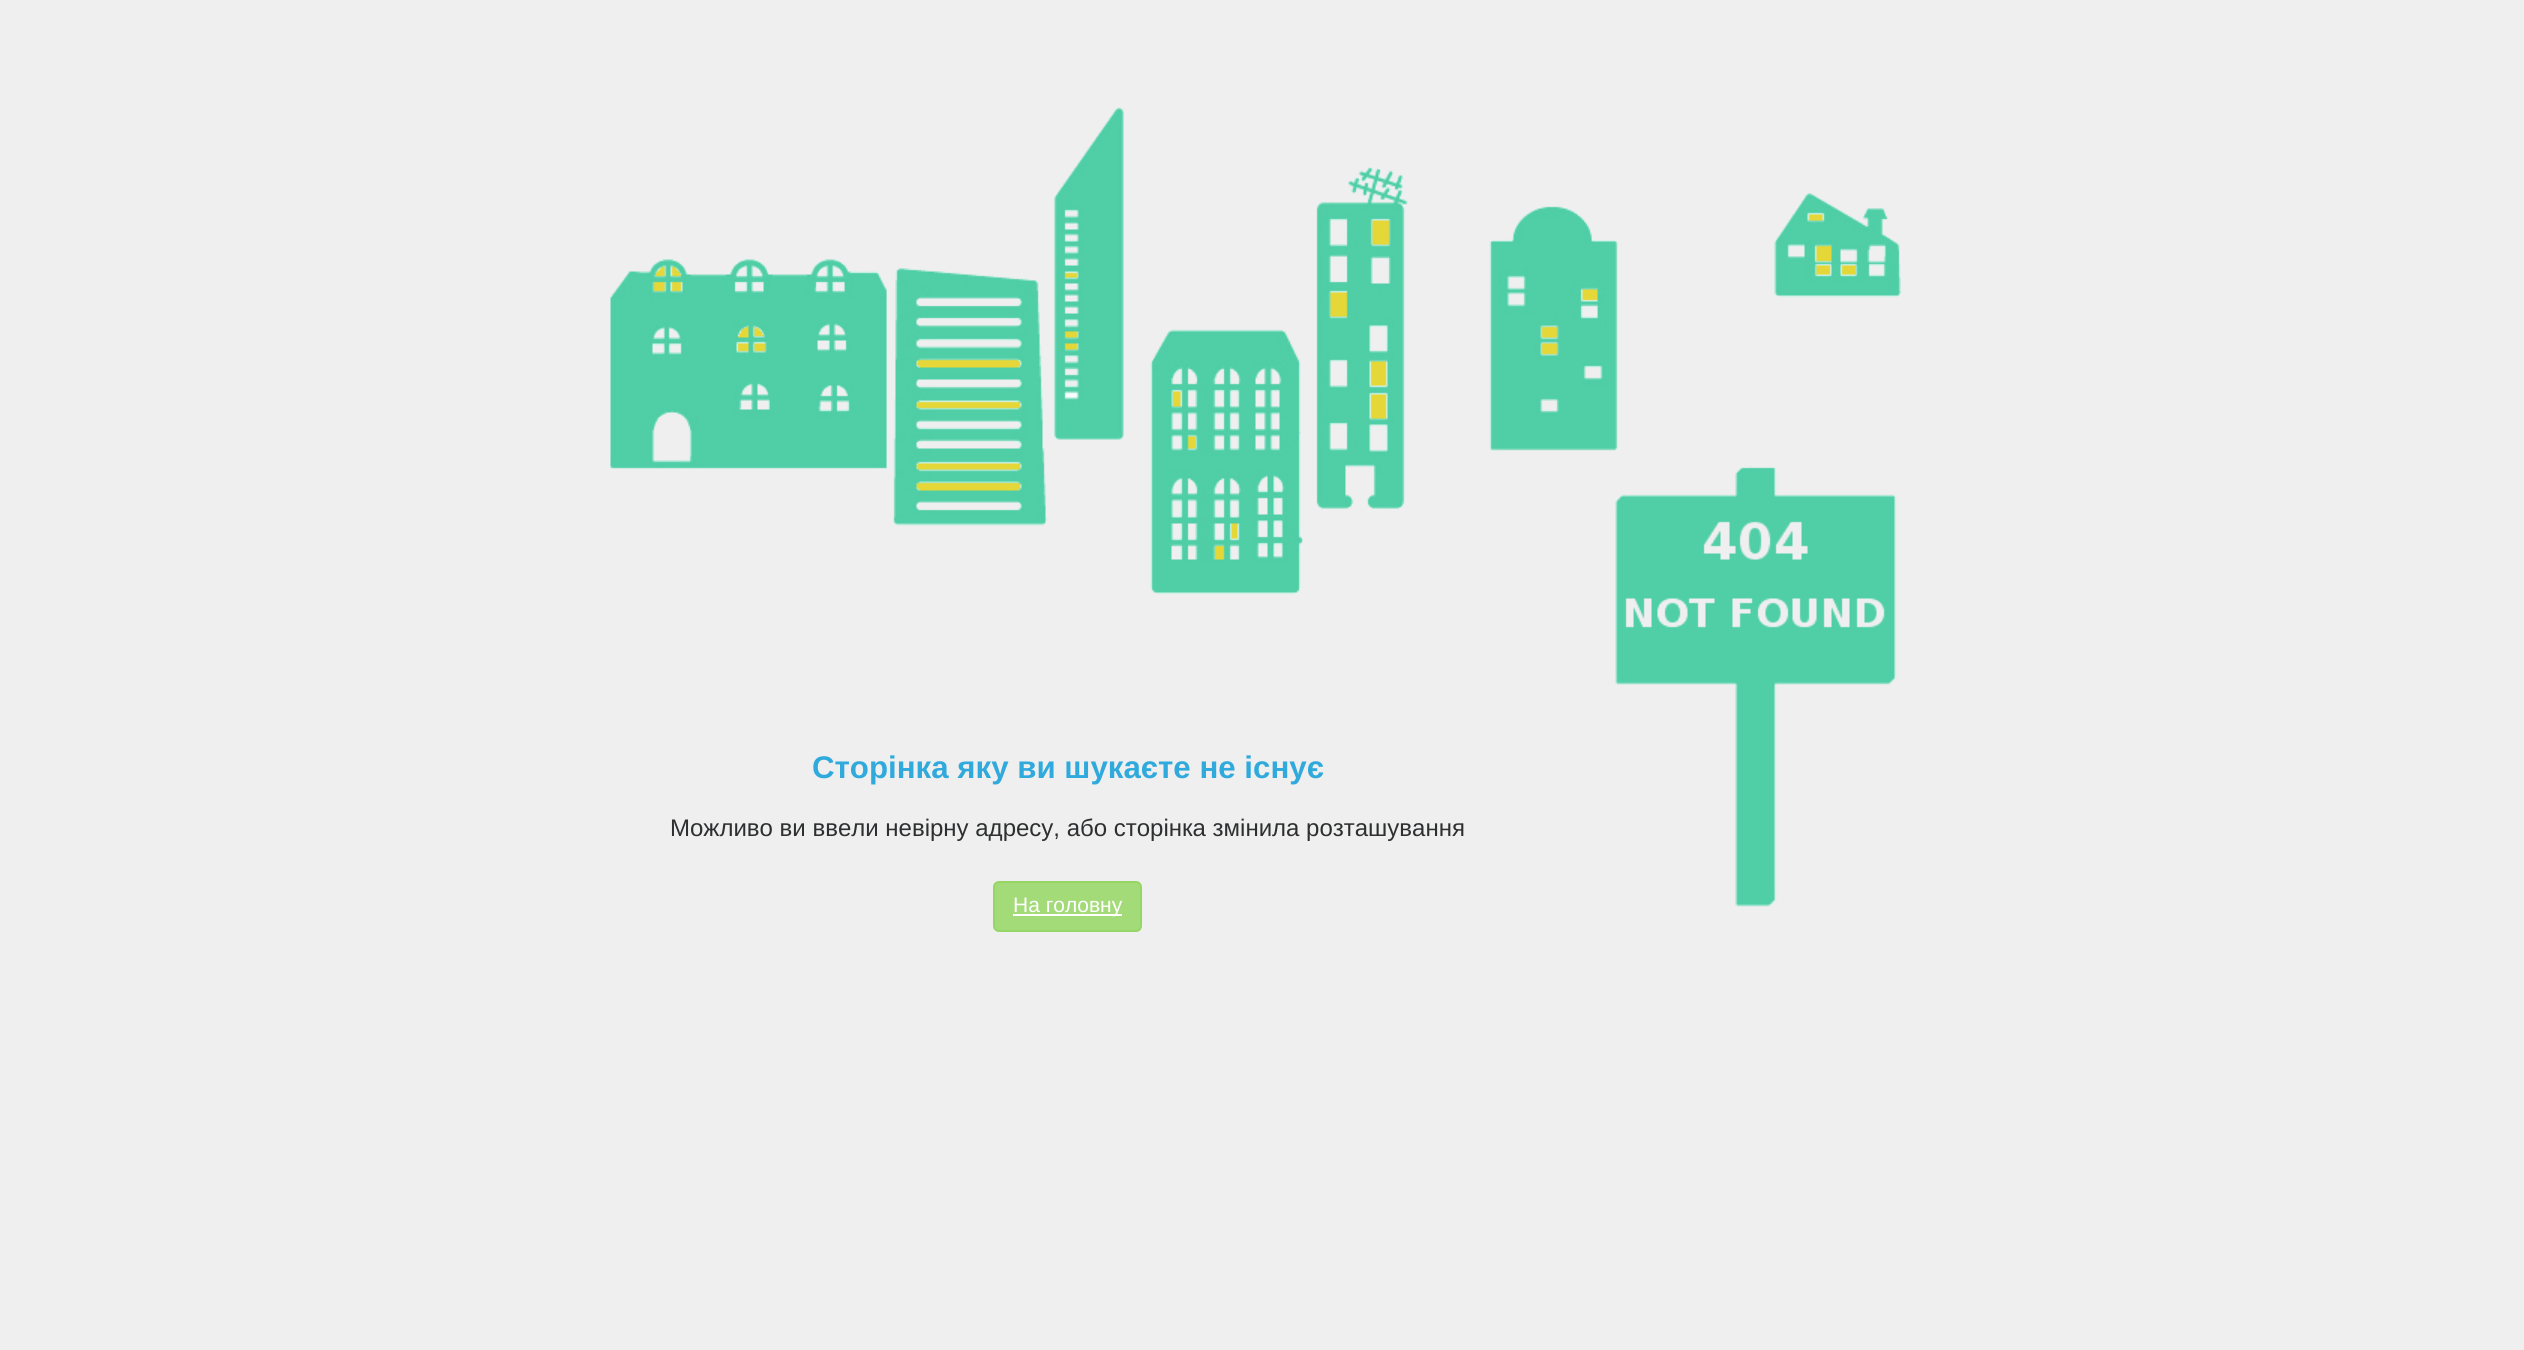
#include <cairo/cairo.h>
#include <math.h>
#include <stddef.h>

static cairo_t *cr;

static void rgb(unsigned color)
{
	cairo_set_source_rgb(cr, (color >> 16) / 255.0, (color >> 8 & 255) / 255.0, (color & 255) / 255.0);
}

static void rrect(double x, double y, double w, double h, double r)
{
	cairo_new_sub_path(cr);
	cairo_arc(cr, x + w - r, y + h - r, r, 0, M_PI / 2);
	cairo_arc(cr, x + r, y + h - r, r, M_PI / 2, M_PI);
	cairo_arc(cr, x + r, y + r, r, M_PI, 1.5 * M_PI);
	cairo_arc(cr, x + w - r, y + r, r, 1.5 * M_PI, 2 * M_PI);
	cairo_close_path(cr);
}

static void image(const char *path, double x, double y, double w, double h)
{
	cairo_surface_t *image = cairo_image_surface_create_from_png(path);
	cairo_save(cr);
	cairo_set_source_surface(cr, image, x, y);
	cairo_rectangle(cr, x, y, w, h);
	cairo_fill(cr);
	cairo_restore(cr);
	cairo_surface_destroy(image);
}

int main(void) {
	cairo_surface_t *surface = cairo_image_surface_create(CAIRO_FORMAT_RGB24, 2524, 1350);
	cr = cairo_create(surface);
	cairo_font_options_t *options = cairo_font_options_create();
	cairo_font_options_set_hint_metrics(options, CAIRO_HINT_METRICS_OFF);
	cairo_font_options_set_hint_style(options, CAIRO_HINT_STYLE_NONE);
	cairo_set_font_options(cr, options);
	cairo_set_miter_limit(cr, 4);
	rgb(0xefefef);
	cairo_paint(cr);
	image("img/1.png", 610, 107, 1291, 800);
	rgb(0xa4db79);
	rrect(994, 882, 147, 49, 5);
	cairo_fill_preserve(cr);
	rgb(0x96d665);
	cairo_stroke(cr);
	rgb(0xffffff);
	cairo_rectangle(cr, 1013, 914, 109, 2);
	cairo_fill(cr);
	cairo_select_font_face(cr, "Liberation Sans", CAIRO_FONT_SLANT_NORMAL, CAIRO_FONT_WEIGHT_BOLD);
	cairo_set_font_size(cr, 31.25);
	rgb(0x30aadc);
	cairo_move_to(cr, 812, 778);
	cairo_show_text(cr, "Сторінка яку ви шукаєте не існує");
	cairo_select_font_face(cr, "Liberation Sans", CAIRO_FONT_SLANT_NORMAL, CAIRO_FONT_WEIGHT_NORMAL);
	cairo_set_font_size(cr, 24);
	rgb(0x2e2f30);
	cairo_move_to(cr, 670, 836);
	cairo_show_text(cr, "Можливо ви ввели невірну адресу, або сторінка змінила розташування");
	cairo_set_font_size(cr, 21);
	rgb(0xffffff);
	cairo_move_to(cr, 1013, 912);
	cairo_show_text(cr, "На головну");
	cairo_surface_write_to_png(surface, "page.png");
	cairo_font_options_destroy(options);
	cairo_destroy(cr);
	cairo_surface_destroy(surface);
	return 0;
}
